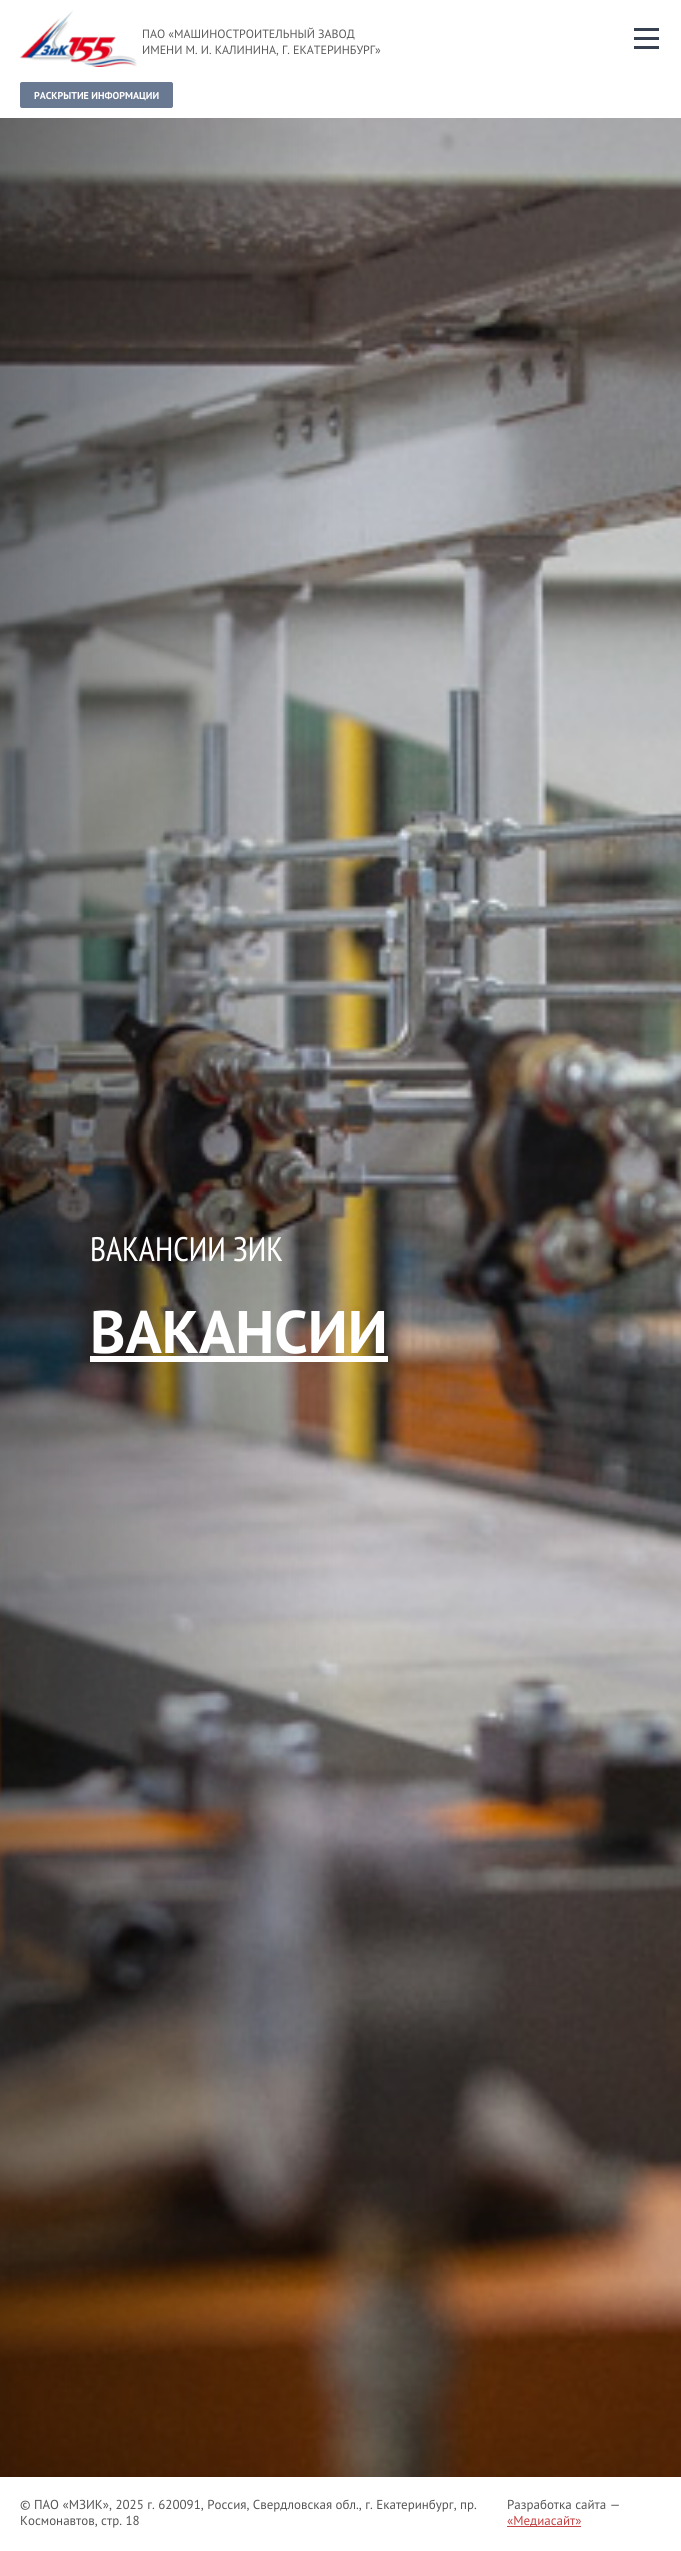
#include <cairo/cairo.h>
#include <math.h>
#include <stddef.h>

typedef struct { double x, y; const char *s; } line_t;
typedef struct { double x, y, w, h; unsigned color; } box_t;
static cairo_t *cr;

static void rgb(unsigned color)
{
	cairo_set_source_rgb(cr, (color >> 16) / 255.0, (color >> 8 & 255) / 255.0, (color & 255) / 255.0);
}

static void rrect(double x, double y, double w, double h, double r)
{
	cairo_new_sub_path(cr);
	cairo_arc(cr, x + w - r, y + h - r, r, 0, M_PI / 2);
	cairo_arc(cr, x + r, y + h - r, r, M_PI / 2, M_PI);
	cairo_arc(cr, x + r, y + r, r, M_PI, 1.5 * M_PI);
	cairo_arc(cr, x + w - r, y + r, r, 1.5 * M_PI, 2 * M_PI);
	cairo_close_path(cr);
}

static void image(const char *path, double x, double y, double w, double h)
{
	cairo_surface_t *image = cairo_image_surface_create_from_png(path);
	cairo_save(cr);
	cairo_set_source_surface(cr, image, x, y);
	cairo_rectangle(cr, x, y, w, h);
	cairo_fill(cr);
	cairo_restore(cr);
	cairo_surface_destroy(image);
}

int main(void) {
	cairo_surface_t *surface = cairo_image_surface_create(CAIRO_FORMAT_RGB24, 681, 2551);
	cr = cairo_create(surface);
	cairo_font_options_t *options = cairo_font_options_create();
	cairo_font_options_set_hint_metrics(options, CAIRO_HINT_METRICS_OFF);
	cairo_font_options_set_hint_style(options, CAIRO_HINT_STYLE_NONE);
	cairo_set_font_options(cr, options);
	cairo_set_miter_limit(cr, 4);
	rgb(0xffffff);
	cairo_paint(cr);
	image("img/1.png", 20, 10, 117, 57);
	{
		static const box_t items[] = {
			{634, 37, 25, 3, 0x364050},
			{634, 28, 25, 3, 0x364050},
			{634, 46, 25, 3, 0x364050},
		};
		for (size_t i = 0; i < sizeof items / sizeof *items; i++) {
			rgb(items[i].color);
			cairo_rectangle(cr, items[i].x, items[i].y, items[i].w, items[i].h);
			cairo_fill(cr);
		}
	}
	rgb(0x697992);
	rrect(20, 82, 153, 26, 2);
	cairo_fill(cr);
	image("img/2.png", 0, 118, 681, 2359);
	rgb(0xffffff);
	cairo_rectangle(cr, 90, 1356, 298, 6);
	cairo_fill(cr);
	rgb(0xc34141);
	cairo_rectangle(cr, 507, 2526, 74, 1);
	cairo_fill(cr);
	cairo_select_font_face(cr, "PT Sans", CAIRO_FONT_SLANT_NORMAL, CAIRO_FONT_WEIGHT_NORMAL);
	cairo_set_font_size(cr, 12);
	rgb(0x5b5b5b);
	cairo_move_to(cr, 142, 38);
	cairo_show_text(cr, "ПАО «МАШИНОСТРОИТЕЛЬНЫЙ ЗАВОД");
	cairo_move_to(cr, 142, 54);
	cairo_show_text(cr, "ИМЕНИ М. И. КАЛИНИНА, Г. ЕКАТЕРИНБУРГ»");
	cairo_select_font_face(cr, "PT Sans", CAIRO_FONT_SLANT_NORMAL, CAIRO_FONT_WEIGHT_BOLD);
	cairo_set_font_size(cr, 10);
	rgb(0xffffff);
	cairo_move_to(cr, 34, 99);
	cairo_show_text(cr, "РАСКРЫТИЕ ИНФОРМАЦИИ");
	cairo_select_font_face(cr, "PT Sans Narrow", CAIRO_FONT_SLANT_NORMAL, CAIRO_FONT_WEIGHT_NORMAL);
	cairo_set_font_size(cr, 34);
	cairo_move_to(cr, 90, 1261);
	cairo_show_text(cr, "ВАКАНСИИ ЗИК");
	cairo_select_font_face(cr, "PT Sans", CAIRO_FONT_SLANT_NORMAL, CAIRO_FONT_WEIGHT_BOLD);
	cairo_set_font_size(cr, 60);
	cairo_move_to(cr, 90, 1353);
	cairo_show_text(cr, "ВАКАНСИИ");
	cairo_select_font_face(cr, "PT Sans", CAIRO_FONT_SLANT_NORMAL, CAIRO_FONT_WEIGHT_NORMAL);
	cairo_set_font_size(cr, 13);
	rgb(0x555555);
	{
		static const line_t items[] = {
			{20, 2509, "© ПАО «МЗИК», 2025 г. 620091, Россия, Свердловская обл., г. Екатеринбург, пр."},
			{20, 2525, "Космонавтов, стр. 18"},
			{507, 2509, "Разработка сайта —"},
		};
		for (size_t i = 0; i < sizeof items / sizeof *items; i++) {
			cairo_move_to(cr, items[i].x, items[i].y);
			cairo_show_text(cr, items[i].s);
		}
	}
	rgb(0xc34141);
	cairo_move_to(cr, 507, 2525);
	cairo_show_text(cr, "«Медиасайт»");
	cairo_surface_write_to_png(surface, "page.png");
	cairo_font_options_destroy(options);
	cairo_destroy(cr);
	cairo_surface_destroy(surface);
	return 0;
}
